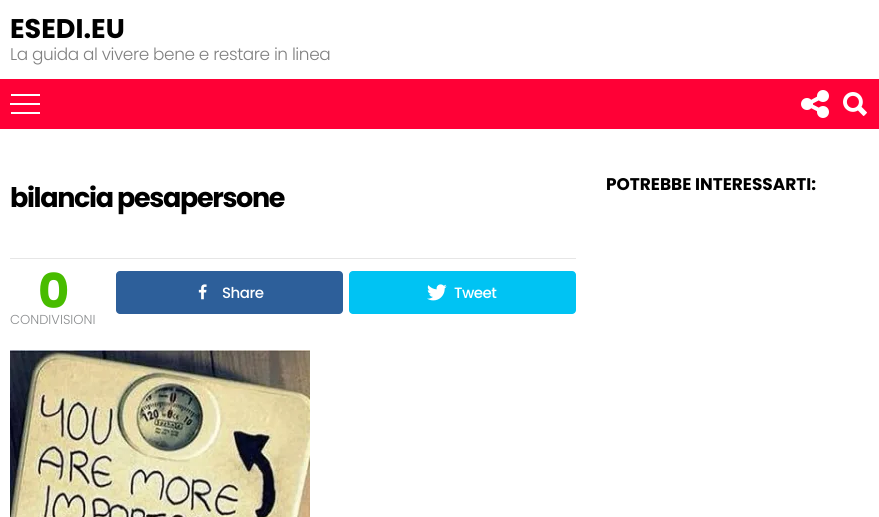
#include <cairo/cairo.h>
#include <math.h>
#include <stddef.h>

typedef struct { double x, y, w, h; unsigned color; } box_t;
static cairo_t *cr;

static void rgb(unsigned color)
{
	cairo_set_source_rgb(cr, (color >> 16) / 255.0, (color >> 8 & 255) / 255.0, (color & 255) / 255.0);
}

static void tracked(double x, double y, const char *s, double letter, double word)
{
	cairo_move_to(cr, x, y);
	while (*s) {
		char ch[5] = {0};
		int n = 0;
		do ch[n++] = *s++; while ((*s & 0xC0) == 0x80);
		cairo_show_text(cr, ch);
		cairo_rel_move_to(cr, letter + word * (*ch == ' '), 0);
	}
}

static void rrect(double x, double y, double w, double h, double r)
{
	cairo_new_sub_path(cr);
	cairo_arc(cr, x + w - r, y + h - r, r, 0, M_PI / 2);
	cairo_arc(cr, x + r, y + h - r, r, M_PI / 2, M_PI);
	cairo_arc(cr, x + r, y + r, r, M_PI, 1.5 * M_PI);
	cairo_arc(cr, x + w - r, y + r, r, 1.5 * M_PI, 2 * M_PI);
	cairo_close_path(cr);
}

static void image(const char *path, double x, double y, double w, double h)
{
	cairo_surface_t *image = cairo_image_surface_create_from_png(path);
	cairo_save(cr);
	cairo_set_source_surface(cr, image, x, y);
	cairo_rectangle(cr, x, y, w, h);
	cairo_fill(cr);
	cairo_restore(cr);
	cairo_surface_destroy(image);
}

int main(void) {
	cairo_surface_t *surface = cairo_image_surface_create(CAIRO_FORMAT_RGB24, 879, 517);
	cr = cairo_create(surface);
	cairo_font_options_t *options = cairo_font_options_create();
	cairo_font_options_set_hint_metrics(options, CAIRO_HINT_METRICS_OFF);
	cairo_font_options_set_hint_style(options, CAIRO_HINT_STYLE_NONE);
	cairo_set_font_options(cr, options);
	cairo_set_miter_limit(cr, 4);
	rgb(0xffffff);
	cairo_paint(cr);
	{
		static const box_t items[] = {
			{0, 79, 879, 50, 0xff0036},
			{11, 94, 29, 2, 0xffffff},
			{11, 112, 29, 2, 0xffffff},
			{10, 103, 30, 2, 0xffffff},
		};
		for (size_t i = 0; i < sizeof items / sizeof *items; i++) {
			rgb(items[i].color);
			cairo_rectangle(cr, items[i].x, items[i].y, items[i].w, items[i].h);
			cairo_fill(cr);
		}
	}
	image("img/1.png", 801, 90, 28, 28);
	image("img/2.png", 843, 92, 24, 24);
	rgb(0xe6e6e6);
	cairo_rectangle(cr, 10, 258, 566, 1);
	cairo_fill(cr);
	rgb(0x2d5f9a);
	rrect(116, 271, 227, 43, 4);
	cairo_fill(cr);
	image("img/3.png", 198, 284, 9, 16);
	rgb(0x00c3f3);
	rrect(349, 271, 227, 43, 4);
	cairo_fill(cr);
	image("img/4.png", 427, 284, 20, 17);
	image("img/5.png", 10, 350, 300, 167);
	cairo_select_font_face(cr, "Poppins", CAIRO_FONT_SLANT_NORMAL, CAIRO_FONT_WEIGHT_BOLD);
	cairo_set_font_size(cr, 27);
	rgb(0x000000);
	cairo_move_to(cr, 10, 38);
	cairo_show_text(cr, "ESEDI.EU");
	cairo_select_font_face(cr, "Poppins Light", CAIRO_FONT_SLANT_NORMAL, CAIRO_FONT_WEIGHT_NORMAL);
	cairo_set_font_size(cr, 16.9);
	rgb(0x808080);
	tracked(10, 60, "La guida al vivere bene e restare in linea", -0.4, 0);
	cairo_select_font_face(cr, "Poppins", CAIRO_FONT_SLANT_NORMAL, CAIRO_FONT_WEIGHT_BOLD);
	cairo_set_font_size(cr, 27);
	rgb(0x000000);
	tracked(10, 207, "bilancia pesapersone", -1.35, 0);
	cairo_set_font_size(cr, 48);
	rgb(0x48bc00);
	tracked(38, 308, "0", -2, 0);
	cairo_select_font_face(cr, "Poppins Light", CAIRO_FONT_SLANT_NORMAL, CAIRO_FONT_WEIGHT_NORMAL);
	cairo_set_font_size(cr, 13);
	rgb(0x8a8c8e);
	cairo_move_to(cr, 10, 324);
	cairo_show_text(cr, "CONDIVISIONI");
	cairo_select_font_face(cr, "Poppins Medium", CAIRO_FONT_SLANT_NORMAL, CAIRO_FONT_WEIGHT_NORMAL);
	cairo_set_font_size(cr, 15);
	rgb(0xffffff);
	tracked(222, 298, "Share", -0.5, 0);
	tracked(454, 298, "Tweet", -0.5, 0);
	cairo_select_font_face(cr, "Poppins", CAIRO_FONT_SLANT_NORMAL, CAIRO_FONT_WEIGHT_BOLD);
	cairo_set_font_size(cr, 16.9);
	rgb(0x000000);
	cairo_move_to(cr, 606, 190);
	cairo_show_text(cr, "POTREBBE INTERESSARTI:");
	cairo_surface_write_to_png(surface, "page.png");
	cairo_font_options_destroy(options);
	cairo_destroy(cr);
	cairo_surface_destroy(surface);
	return 0;
}
